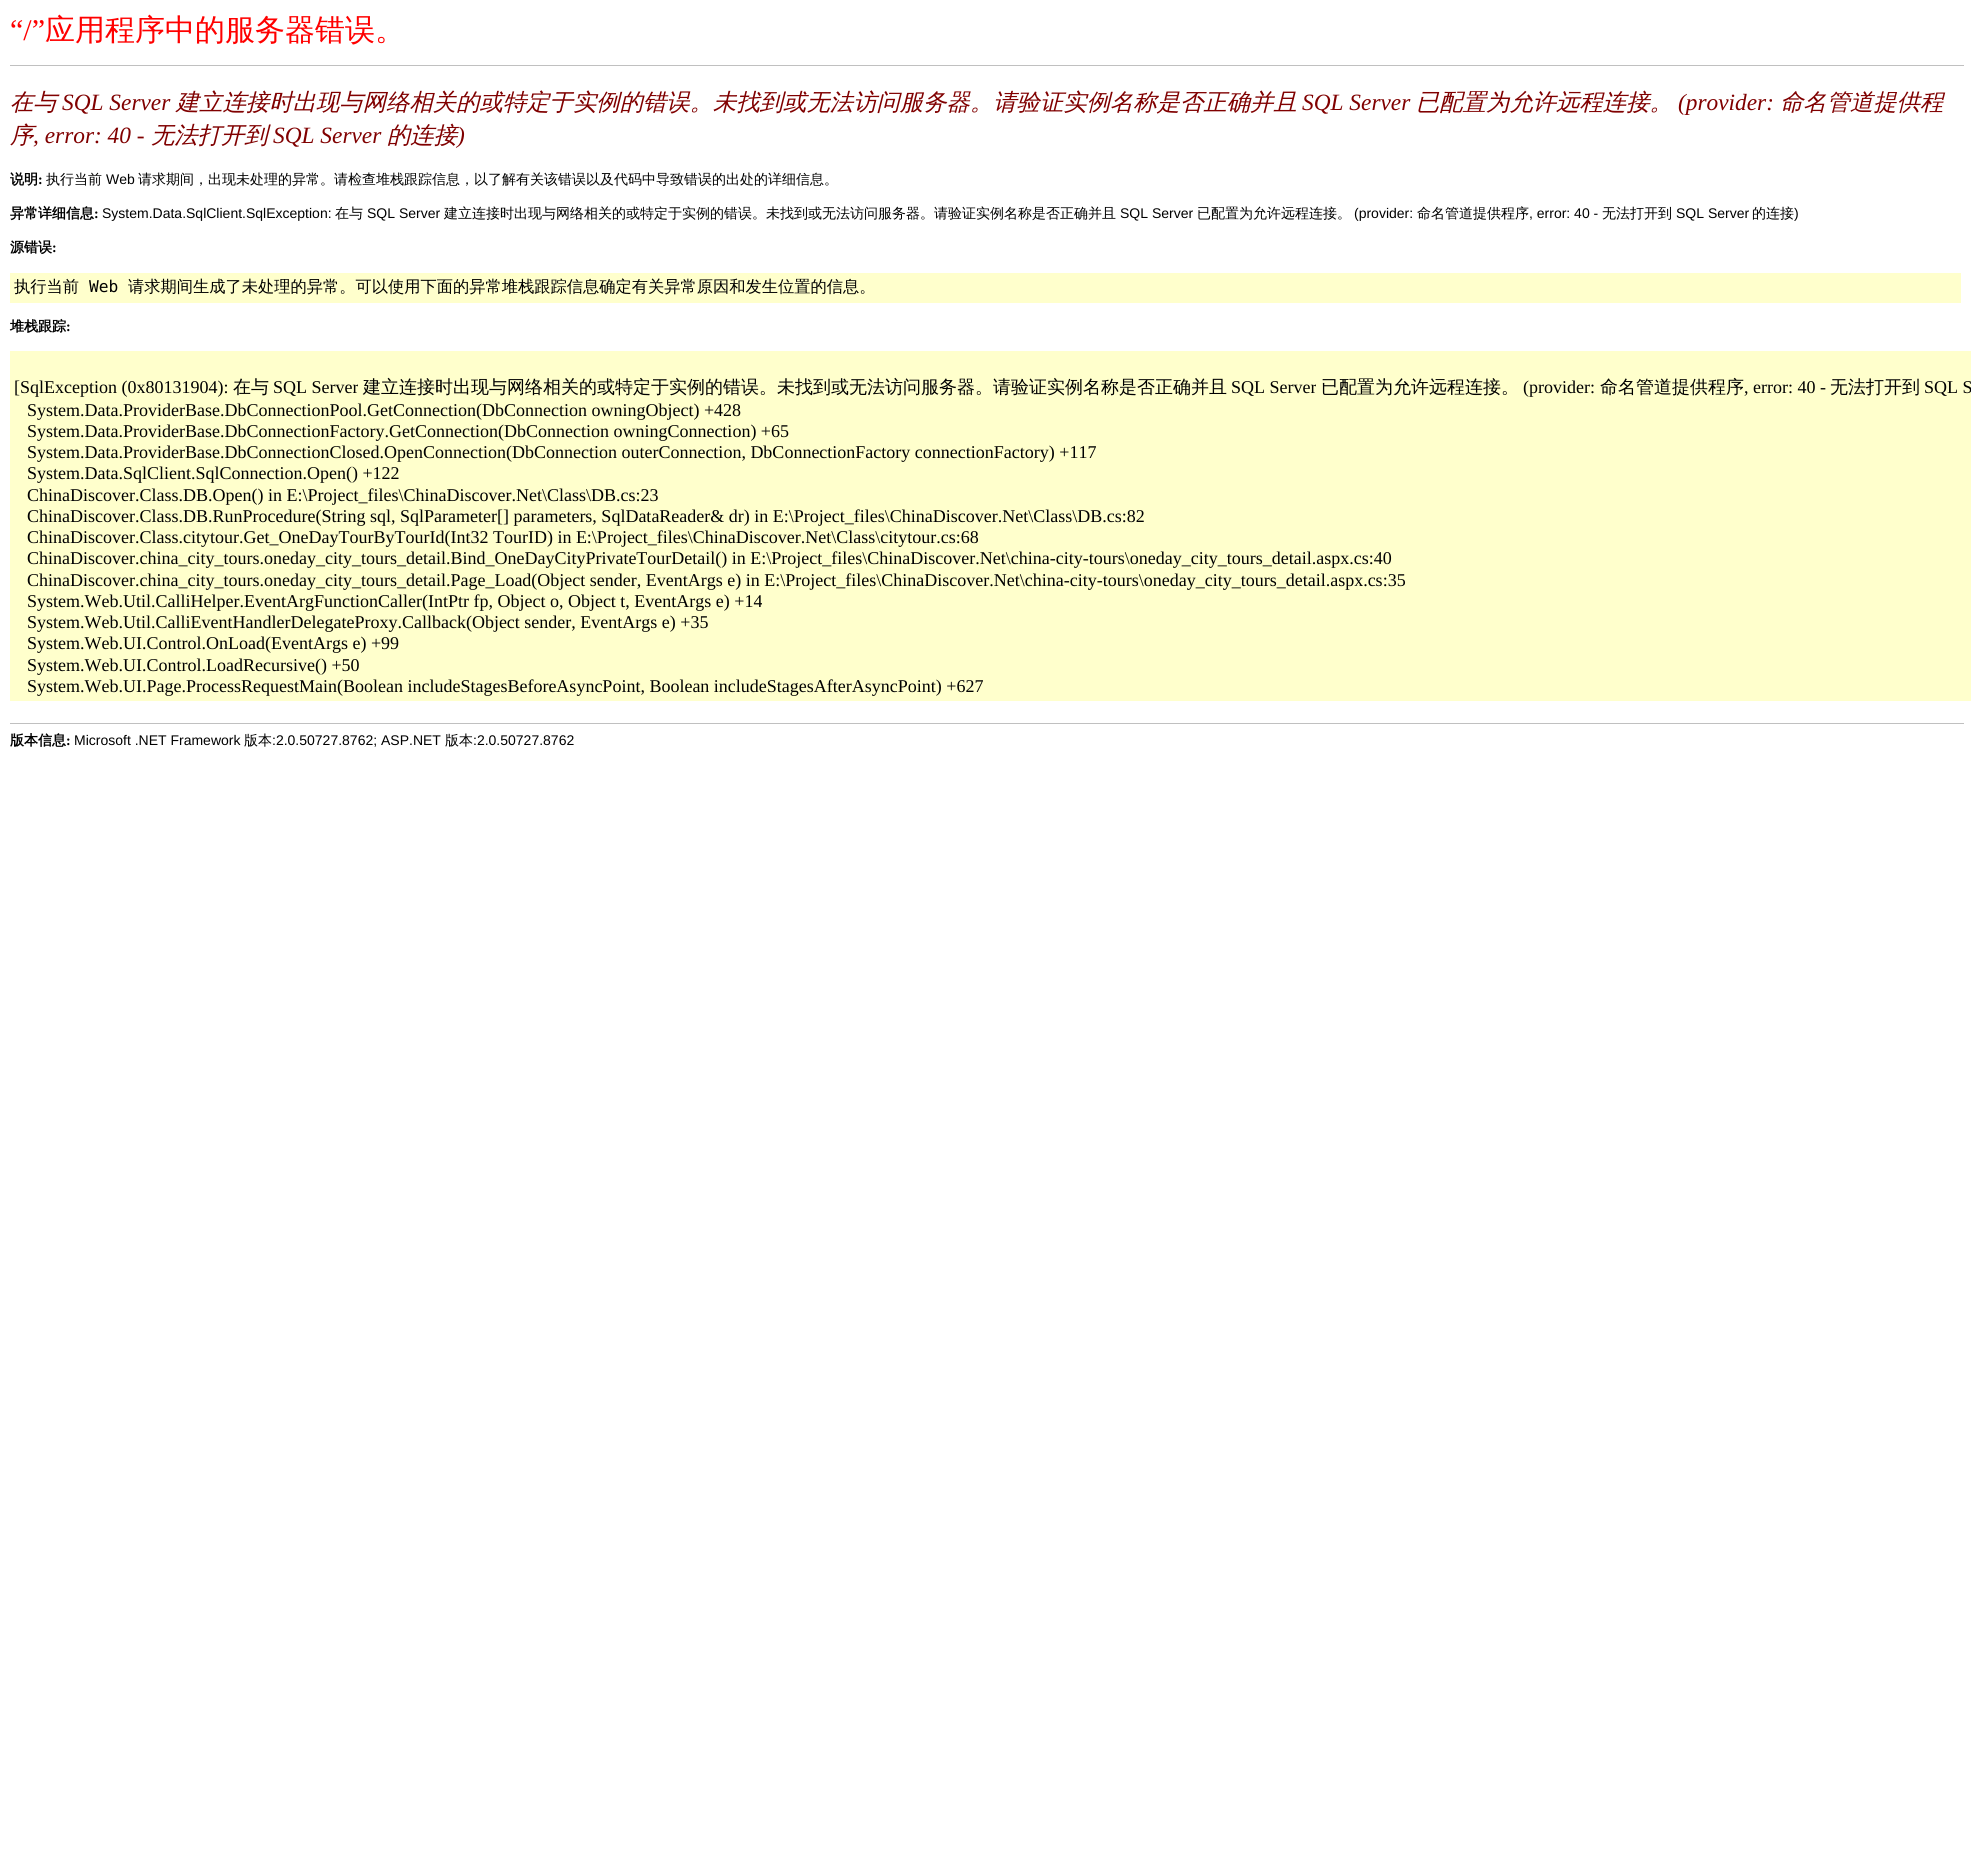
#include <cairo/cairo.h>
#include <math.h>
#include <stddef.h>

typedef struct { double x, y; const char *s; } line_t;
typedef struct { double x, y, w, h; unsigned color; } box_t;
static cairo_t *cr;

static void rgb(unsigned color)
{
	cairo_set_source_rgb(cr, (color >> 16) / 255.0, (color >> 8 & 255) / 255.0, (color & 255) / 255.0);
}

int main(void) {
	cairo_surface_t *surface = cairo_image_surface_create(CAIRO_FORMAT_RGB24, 1971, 1852);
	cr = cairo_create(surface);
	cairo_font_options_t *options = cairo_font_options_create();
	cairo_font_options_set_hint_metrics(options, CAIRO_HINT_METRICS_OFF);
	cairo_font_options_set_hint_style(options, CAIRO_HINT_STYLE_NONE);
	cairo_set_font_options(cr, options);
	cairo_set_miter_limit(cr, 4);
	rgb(0xffffff);
	cairo_paint(cr);
	{
		static const box_t items[] = {
			{10, 65, 1954, 1, 0xc0c0c0},
			{10, 273, 1951, 30, 0xffffcc},
			{10, 351, 1961, 350, 0xffffcc},
			{10, 723, 1954, 1, 0xc0c0c0},
		};
		for (size_t i = 0; i < sizeof items / sizeof *items; i++) {
			rgb(items[i].color);
			cairo_rectangle(cr, items[i].x, items[i].y, items[i].w, items[i].h);
			cairo_fill(cr);
		}
	}
	cairo_select_font_face(cr, "Liberation Serif", CAIRO_FONT_SLANT_NORMAL, CAIRO_FONT_WEIGHT_NORMAL);
	cairo_set_font_size(cr, 30);
	rgb(0xff0000);
	cairo_move_to(cr, 10, 40);
	cairo_show_text(cr, "“/”");
	cairo_select_font_face(cr, "WenQuanYi Zen Hei Medium", CAIRO_FONT_SLANT_NORMAL, CAIRO_FONT_WEIGHT_NORMAL);
	cairo_move_to(cr, 45, 40);
	cairo_show_text(cr, "应用程序中的服务器错误。");
	cairo_select_font_face(cr, "WenQuanYi Zen Hei Medium", CAIRO_FONT_SLANT_ITALIC, CAIRO_FONT_WEIGHT_NORMAL);
	cairo_set_font_size(cr, 23.35);
	rgb(0x800000);
	cairo_move_to(cr, 10, 110);
	cairo_show_text(cr, "在与");
	cairo_select_font_face(cr, "Liberation Serif", CAIRO_FONT_SLANT_ITALIC, CAIRO_FONT_WEIGHT_NORMAL);
	cairo_move_to(cr, 62, 110);
	cairo_show_text(cr, "SQL Server");
	cairo_select_font_face(cr, "WenQuanYi Zen Hei Medium", CAIRO_FONT_SLANT_ITALIC, CAIRO_FONT_WEIGHT_NORMAL);
	cairo_move_to(cr, 176, 110);
	cairo_show_text(cr, "建立连接时出现与网络相关的或特定于实例的错误。未找到或无法访问服务器。请验证实例名称是否正确并且");
	cairo_select_font_face(cr, "Liberation Serif", CAIRO_FONT_SLANT_ITALIC, CAIRO_FONT_WEIGHT_NORMAL);
	cairo_move_to(cr, 1302, 110);
	cairo_show_text(cr, "SQL Server");
	cairo_select_font_face(cr, "WenQuanYi Zen Hei Medium", CAIRO_FONT_SLANT_ITALIC, CAIRO_FONT_WEIGHT_NORMAL);
	cairo_move_to(cr, 1416, 110);
	cairo_show_text(cr, "已配置为允许远程连接。");
	cairo_select_font_face(cr, "Liberation Serif", CAIRO_FONT_SLANT_ITALIC, CAIRO_FONT_WEIGHT_NORMAL);
	cairo_move_to(cr, 1678, 110);
	cairo_show_text(cr, "(provider:");
	cairo_select_font_face(cr, "WenQuanYi Zen Hei Medium", CAIRO_FONT_SLANT_ITALIC, CAIRO_FONT_WEIGHT_NORMAL);
	cairo_move_to(cr, 1780, 110);
	cairo_show_text(cr, "命名管道提供程");
	cairo_move_to(cr, 10, 143);
	cairo_show_text(cr, "序");
	cairo_select_font_face(cr, "Liberation Serif", CAIRO_FONT_SLANT_ITALIC, CAIRO_FONT_WEIGHT_NORMAL);
	cairo_move_to(cr, 33, 143);
	cairo_show_text(cr, ", error: 40 -");
	cairo_select_font_face(cr, "WenQuanYi Zen Hei Medium", CAIRO_FONT_SLANT_ITALIC, CAIRO_FONT_WEIGHT_NORMAL);
	cairo_move_to(cr, 151, 143);
	cairo_show_text(cr, "无法打开到");
	cairo_select_font_face(cr, "Liberation Serif", CAIRO_FONT_SLANT_ITALIC, CAIRO_FONT_WEIGHT_NORMAL);
	cairo_move_to(cr, 273, 143);
	cairo_show_text(cr, "SQL Server");
	cairo_select_font_face(cr, "WenQuanYi Zen Hei Medium", CAIRO_FONT_SLANT_ITALIC, CAIRO_FONT_WEIGHT_NORMAL);
	cairo_move_to(cr, 387, 143);
	cairo_show_text(cr, "的连接");
	cairo_select_font_face(cr, "Liberation Serif", CAIRO_FONT_SLANT_ITALIC, CAIRO_FONT_WEIGHT_NORMAL);
	cairo_move_to(cr, 457, 143);
	cairo_show_text(cr, ")");
	cairo_select_font_face(cr, "WenQuanYi Zen Hei", CAIRO_FONT_SLANT_NORMAL, CAIRO_FONT_WEIGHT_BOLD);
	cairo_set_font_size(cr, 14);
	rgb(0x000000);
	cairo_move_to(cr, 10, 184);
	cairo_show_text(cr, "说明");
	cairo_select_font_face(cr, "Liberation Serif", CAIRO_FONT_SLANT_NORMAL, CAIRO_FONT_WEIGHT_BOLD);
	cairo_move_to(cr, 38, 184);
	cairo_show_text(cr, ":");
	cairo_select_font_face(cr, "WenQuanYi Zen Hei Medium", CAIRO_FONT_SLANT_NORMAL, CAIRO_FONT_WEIGHT_NORMAL);
	cairo_move_to(cr, 46, 184);
	cairo_show_text(cr, "执行当前");
	cairo_select_font_face(cr, "Liberation Sans", CAIRO_FONT_SLANT_NORMAL, CAIRO_FONT_WEIGHT_NORMAL);
	cairo_move_to(cr, 106, 184);
	cairo_show_text(cr, "Web");
	cairo_select_font_face(cr, "WenQuanYi Zen Hei Medium", CAIRO_FONT_SLANT_NORMAL, CAIRO_FONT_WEIGHT_NORMAL);
	cairo_move_to(cr, 138, 184);
	cairo_show_text(cr, "请求期间，出现未处理的异常。请检查堆栈跟踪信息，以了解有关该错误以及代码中导致错误的出处的详细信息。");
	cairo_select_font_face(cr, "WenQuanYi Zen Hei", CAIRO_FONT_SLANT_NORMAL, CAIRO_FONT_WEIGHT_BOLD);
	cairo_move_to(cr, 10, 218);
	cairo_show_text(cr, "异常详细信息");
	cairo_select_font_face(cr, "Liberation Serif", CAIRO_FONT_SLANT_NORMAL, CAIRO_FONT_WEIGHT_BOLD);
	cairo_move_to(cr, 94, 218);
	cairo_show_text(cr, ":");
	cairo_select_font_face(cr, "Liberation Sans", CAIRO_FONT_SLANT_NORMAL, CAIRO_FONT_WEIGHT_NORMAL);
	cairo_move_to(cr, 102, 218);
	cairo_show_text(cr, "System.Data.SqlClient.SqlException:");
	cairo_select_font_face(cr, "WenQuanYi Zen Hei Medium", CAIRO_FONT_SLANT_NORMAL, CAIRO_FONT_WEIGHT_NORMAL);
	cairo_move_to(cr, 335, 218);
	cairo_show_text(cr, "在与");
	cairo_select_font_face(cr, "Liberation Sans", CAIRO_FONT_SLANT_NORMAL, CAIRO_FONT_WEIGHT_NORMAL);
	cairo_move_to(cr, 367, 218);
	cairo_show_text(cr, "SQL Server");
	cairo_select_font_face(cr, "WenQuanYi Zen Hei Medium", CAIRO_FONT_SLANT_NORMAL, CAIRO_FONT_WEIGHT_NORMAL);
	cairo_move_to(cr, 444, 218);
	cairo_show_text(cr, "建立连接时出现与网络相关的或特定于实例的错误。未找到或无法访问服务器。请验证实例名称是否正确并且");
	cairo_select_font_face(cr, "Liberation Sans", CAIRO_FONT_SLANT_NORMAL, CAIRO_FONT_WEIGHT_NORMAL);
	cairo_move_to(cr, 1120, 218);
	cairo_show_text(cr, "SQL Server");
	cairo_select_font_face(cr, "WenQuanYi Zen Hei Medium", CAIRO_FONT_SLANT_NORMAL, CAIRO_FONT_WEIGHT_NORMAL);
	cairo_move_to(cr, 1197, 218);
	cairo_show_text(cr, "已配置为允许远程连接。");
	cairo_select_font_face(cr, "Liberation Sans", CAIRO_FONT_SLANT_NORMAL, CAIRO_FONT_WEIGHT_NORMAL);
	cairo_move_to(cr, 1354, 218);
	cairo_show_text(cr, "(provider:");
	cairo_select_font_face(cr, "WenQuanYi Zen Hei Medium", CAIRO_FONT_SLANT_NORMAL, CAIRO_FONT_WEIGHT_NORMAL);
	cairo_move_to(cr, 1417, 218);
	cairo_show_text(cr, "命名管道提供程序");
	cairo_select_font_face(cr, "Liberation Sans", CAIRO_FONT_SLANT_NORMAL, CAIRO_FONT_WEIGHT_NORMAL);
	cairo_move_to(cr, 1529, 218);
	cairo_show_text(cr, ", error: 40 -");
	cairo_select_font_face(cr, "WenQuanYi Zen Hei Medium", CAIRO_FONT_SLANT_NORMAL, CAIRO_FONT_WEIGHT_NORMAL);
	cairo_move_to(cr, 1602, 218);
	cairo_show_text(cr, "无法打开到");
	cairo_select_font_face(cr, "Liberation Sans", CAIRO_FONT_SLANT_NORMAL, CAIRO_FONT_WEIGHT_NORMAL);
	cairo_move_to(cr, 1676, 218);
	cairo_show_text(cr, "SQL Server");
	cairo_select_font_face(cr, "WenQuanYi Zen Hei Medium", CAIRO_FONT_SLANT_NORMAL, CAIRO_FONT_WEIGHT_NORMAL);
	cairo_move_to(cr, 1752, 218);
	cairo_show_text(cr, "的连接");
	cairo_select_font_face(cr, "Liberation Sans", CAIRO_FONT_SLANT_NORMAL, CAIRO_FONT_WEIGHT_NORMAL);
	cairo_move_to(cr, 1794, 218);
	cairo_show_text(cr, ")");
	cairo_select_font_face(cr, "WenQuanYi Zen Hei", CAIRO_FONT_SLANT_NORMAL, CAIRO_FONT_WEIGHT_BOLD);
	cairo_move_to(cr, 10, 252);
	cairo_show_text(cr, "源错误");
	cairo_select_font_face(cr, "Liberation Serif", CAIRO_FONT_SLANT_NORMAL, CAIRO_FONT_WEIGHT_BOLD);
	cairo_move_to(cr, 52, 252);
	cairo_show_text(cr, ":");
	cairo_select_font_face(cr, "WenQuanYi Zen Hei Medium", CAIRO_FONT_SLANT_NORMAL, CAIRO_FONT_WEIGHT_NORMAL);
	cairo_set_font_size(cr, 16.25);
	cairo_move_to(cr, 14, 292);
	cairo_show_text(cr, "执行当前");
	cairo_select_font_face(cr, "DejaVu Sans Mono", CAIRO_FONT_SLANT_NORMAL, CAIRO_FONT_WEIGHT_NORMAL);
	cairo_move_to(cr, 89, 292);
	cairo_show_text(cr, "Web");
	cairo_select_font_face(cr, "WenQuanYi Zen Hei Medium", CAIRO_FONT_SLANT_NORMAL, CAIRO_FONT_WEIGHT_NORMAL);
	cairo_move_to(cr, 128, 292);
	cairo_show_text(cr, "请求期间生成了未处理的异常。可以使用下面的异常堆栈跟踪信息确定有关异常原因和发生位置的信息。");
	cairo_select_font_face(cr, "WenQuanYi Zen Hei", CAIRO_FONT_SLANT_NORMAL, CAIRO_FONT_WEIGHT_BOLD);
	cairo_set_font_size(cr, 14);
	cairo_move_to(cr, 10, 331);
	cairo_show_text(cr, "堆栈跟踪");
	cairo_select_font_face(cr, "Liberation Serif", CAIRO_FONT_SLANT_NORMAL, CAIRO_FONT_WEIGHT_BOLD);
	cairo_move_to(cr, 66, 331);
	cairo_show_text(cr, ":");
	cairo_select_font_face(cr, "Liberation Serif", CAIRO_FONT_SLANT_NORMAL, CAIRO_FONT_WEIGHT_NORMAL);
	cairo_set_font_size(cr, 18);
	cairo_move_to(cr, 14, 393);
	cairo_show_text(cr, "[SqlException (0x80131904):");
	cairo_select_font_face(cr, "WenQuanYi Zen Hei Medium", CAIRO_FONT_SLANT_NORMAL, CAIRO_FONT_WEIGHT_NORMAL);
	cairo_move_to(cr, 233, 393);
	cairo_show_text(cr, "在与");
	cairo_select_font_face(cr, "Liberation Serif", CAIRO_FONT_SLANT_NORMAL, CAIRO_FONT_WEIGHT_NORMAL);
	cairo_move_to(cr, 273, 393);
	cairo_show_text(cr, "SQL Server");
	cairo_select_font_face(cr, "WenQuanYi Zen Hei Medium", CAIRO_FONT_SLANT_NORMAL, CAIRO_FONT_WEIGHT_NORMAL);
	cairo_move_to(cr, 363, 393);
	cairo_show_text(cr, "建立连接时出现与网络相关的或特定于实例的错误。未找到或无法访问服务器。请验证实例名称是否正确并且");
	cairo_select_font_face(cr, "Liberation Serif", CAIRO_FONT_SLANT_NORMAL, CAIRO_FONT_WEIGHT_NORMAL);
	cairo_move_to(cr, 1231, 393);
	cairo_show_text(cr, "SQL Server");
	cairo_select_font_face(cr, "WenQuanYi Zen Hei Medium", CAIRO_FONT_SLANT_NORMAL, CAIRO_FONT_WEIGHT_NORMAL);
	cairo_move_to(cr, 1321, 393);
	cairo_show_text(cr, "已配置为允许远程连接。");
	cairo_select_font_face(cr, "Liberation Serif", CAIRO_FONT_SLANT_NORMAL, CAIRO_FONT_WEIGHT_NORMAL);
	cairo_move_to(cr, 1523, 393);
	cairo_show_text(cr, "(provider:");
	cairo_select_font_face(cr, "WenQuanYi Zen Hei Medium", CAIRO_FONT_SLANT_NORMAL, CAIRO_FONT_WEIGHT_NORMAL);
	cairo_move_to(cr, 1600, 393);
	cairo_show_text(cr, "命名管道提供程序");
	cairo_select_font_face(cr, "Liberation Serif", CAIRO_FONT_SLANT_NORMAL, CAIRO_FONT_WEIGHT_NORMAL);
	cairo_move_to(cr, 1744, 393);
	cairo_show_text(cr, ", error: 40 -");
	cairo_select_font_face(cr, "WenQuanYi Zen Hei Medium", CAIRO_FONT_SLANT_NORMAL, CAIRO_FONT_WEIGHT_NORMAL);
	cairo_move_to(cr, 1830, 393);
	cairo_show_text(cr, "无法打开到");
	cairo_select_font_face(cr, "Liberation Serif", CAIRO_FONT_SLANT_NORMAL, CAIRO_FONT_WEIGHT_NORMAL);
	{
		static const line_t items[] = {
			{1924, 393, "SQL S"},
			{27, 416, "System.Data.ProviderBase.DbConnectionPool.GetConnection(DbConnection owningObject) +428"},
			{27, 437, "System.Data.ProviderBase.DbConnectionFactory.GetConnection(DbConnection owningConnection) +65"},
			{27, 458, "System.Data.ProviderBase.DbConnectionClosed.OpenConnection(DbConnection outerConnection, DbConnectionFactory connectionFactory) +117"},
			{27, 479, "System.Data.SqlClient.SqlConnection.Open() +122"},
			{27, 501, "ChinaDiscover.Class.DB.Open() in E:\\Project_files\\ChinaDiscover.Net\\Class\\DB.cs:23"},
			{27, 522, "ChinaDiscover.Class.DB.RunProcedure(String sql, SqlParameter[] parameters, SqlDataReader& dr) in E:\\Project_files\\ChinaDiscover.Net\\Class\\DB.cs:82"},
			{27, 543, "ChinaDiscover.Class.citytour.Get_OneDayTourByTourId(Int32 TourID) in E:\\Project_files\\ChinaDiscover.Net\\Class\\citytour.cs:68"},
			{27, 564, "ChinaDiscover.china_city_tours.oneday_city_tours_detail.Bind_OneDayCityPrivateTourDetail() in E:\\Project_files\\ChinaDiscover.Net\\china-city-tours\\oneday_city_tours_detail.aspx.cs:40"},
			{27, 586, "ChinaDiscover.china_city_tours.oneday_city_tours_detail.Page_Load(Object sender, EventArgs e) in E:\\Project_files\\ChinaDiscover.Net\\china-city-tours\\oneday_city_tours_detail.aspx.cs:35"},
			{27, 607, "System.Web.Util.CalliHelper.EventArgFunctionCaller(IntPtr fp, Object o, Object t, EventArgs e) +14"},
			{27, 628, "System.Web.Util.CalliEventHandlerDelegateProxy.Callback(Object sender, EventArgs e) +35"},
			{27, 649, "System.Web.UI.Control.OnLoad(EventArgs e) +99"},
			{27, 671, "System.Web.UI.Control.LoadRecursive() +50"},
			{27, 692, "System.Web.UI.Page.ProcessRequestMain(Boolean includeStagesBeforeAsyncPoint, Boolean includeStagesAfterAsyncPoint) +627"},
		};
		for (size_t i = 0; i < sizeof items / sizeof *items; i++) {
			cairo_move_to(cr, items[i].x, items[i].y);
			cairo_show_text(cr, items[i].s);
		}
	}
	cairo_select_font_face(cr, "WenQuanYi Zen Hei", CAIRO_FONT_SLANT_NORMAL, CAIRO_FONT_WEIGHT_BOLD);
	cairo_set_font_size(cr, 14);
	cairo_move_to(cr, 10, 745);
	cairo_show_text(cr, "版本信息");
	cairo_select_font_face(cr, "Liberation Serif", CAIRO_FONT_SLANT_NORMAL, CAIRO_FONT_WEIGHT_BOLD);
	cairo_move_to(cr, 66, 745);
	cairo_show_text(cr, ":");
	cairo_select_font_face(cr, "Liberation Sans", CAIRO_FONT_SLANT_NORMAL, CAIRO_FONT_WEIGHT_NORMAL);
	cairo_move_to(cr, 74, 745);
	cairo_show_text(cr, "Microsoft .NET Framework");
	cairo_select_font_face(cr, "WenQuanYi Zen Hei Medium", CAIRO_FONT_SLANT_NORMAL, CAIRO_FONT_WEIGHT_NORMAL);
	cairo_move_to(cr, 244, 745);
	cairo_show_text(cr, "版本");
	cairo_select_font_face(cr, "Liberation Sans", CAIRO_FONT_SLANT_NORMAL, CAIRO_FONT_WEIGHT_NORMAL);
	cairo_move_to(cr, 272, 745);
	cairo_show_text(cr, ":2.0.50727.8762; ASP.NET");
	cairo_select_font_face(cr, "WenQuanYi Zen Hei Medium", CAIRO_FONT_SLANT_NORMAL, CAIRO_FONT_WEIGHT_NORMAL);
	cairo_move_to(cr, 445, 745);
	cairo_show_text(cr, "版本");
	cairo_select_font_face(cr, "Liberation Sans", CAIRO_FONT_SLANT_NORMAL, CAIRO_FONT_WEIGHT_NORMAL);
	cairo_move_to(cr, 473, 745);
	cairo_show_text(cr, ":2.0.50727.8762");
	cairo_surface_write_to_png(surface, "page.png");
	cairo_font_options_destroy(options);
	cairo_destroy(cr);
	cairo_surface_destroy(surface);
	return 0;
}
